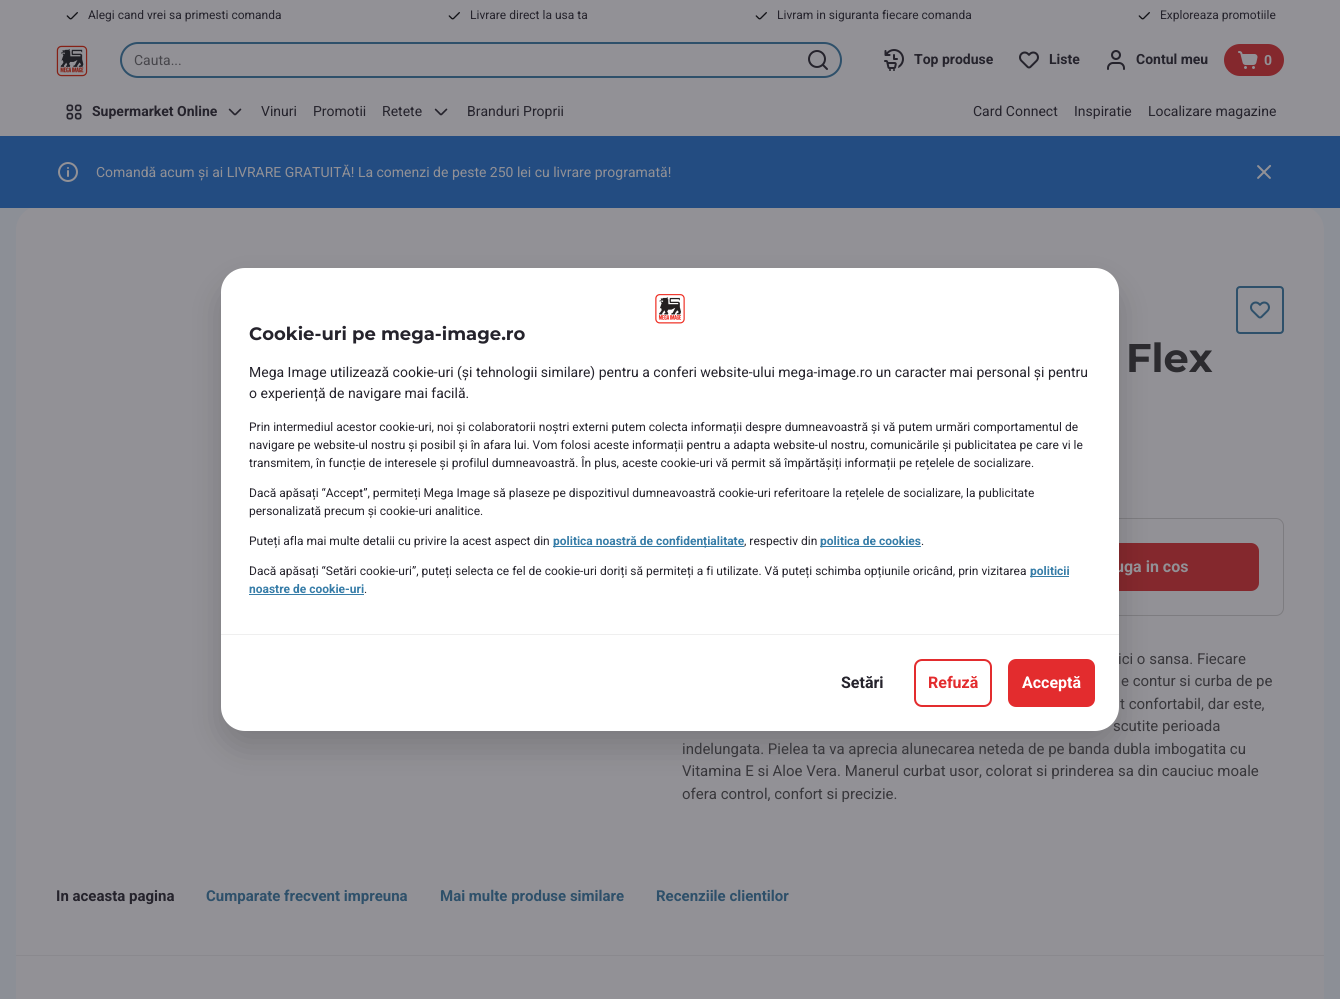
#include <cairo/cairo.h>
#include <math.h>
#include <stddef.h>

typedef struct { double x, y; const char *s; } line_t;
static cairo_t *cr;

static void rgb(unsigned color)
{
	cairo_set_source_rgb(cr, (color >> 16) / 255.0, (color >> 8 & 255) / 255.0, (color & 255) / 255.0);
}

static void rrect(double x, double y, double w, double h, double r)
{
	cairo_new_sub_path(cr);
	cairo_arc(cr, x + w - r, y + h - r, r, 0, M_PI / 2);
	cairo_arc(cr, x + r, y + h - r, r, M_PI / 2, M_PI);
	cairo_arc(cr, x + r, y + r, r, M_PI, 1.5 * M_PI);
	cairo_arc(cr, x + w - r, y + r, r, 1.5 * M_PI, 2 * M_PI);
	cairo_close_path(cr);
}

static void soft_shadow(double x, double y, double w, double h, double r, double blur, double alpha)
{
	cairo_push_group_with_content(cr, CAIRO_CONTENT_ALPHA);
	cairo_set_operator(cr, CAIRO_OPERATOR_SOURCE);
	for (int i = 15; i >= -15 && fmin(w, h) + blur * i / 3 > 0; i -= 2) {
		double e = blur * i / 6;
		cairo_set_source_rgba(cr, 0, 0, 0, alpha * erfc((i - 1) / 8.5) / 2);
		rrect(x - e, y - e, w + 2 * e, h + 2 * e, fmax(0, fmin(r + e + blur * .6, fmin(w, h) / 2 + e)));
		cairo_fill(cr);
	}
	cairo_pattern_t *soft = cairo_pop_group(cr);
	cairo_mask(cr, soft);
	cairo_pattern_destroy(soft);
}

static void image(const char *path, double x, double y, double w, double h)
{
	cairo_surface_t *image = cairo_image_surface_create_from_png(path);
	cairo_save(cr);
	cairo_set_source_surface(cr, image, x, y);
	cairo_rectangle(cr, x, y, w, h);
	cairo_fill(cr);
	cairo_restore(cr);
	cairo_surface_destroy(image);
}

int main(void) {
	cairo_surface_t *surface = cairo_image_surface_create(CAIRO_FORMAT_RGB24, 1340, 999);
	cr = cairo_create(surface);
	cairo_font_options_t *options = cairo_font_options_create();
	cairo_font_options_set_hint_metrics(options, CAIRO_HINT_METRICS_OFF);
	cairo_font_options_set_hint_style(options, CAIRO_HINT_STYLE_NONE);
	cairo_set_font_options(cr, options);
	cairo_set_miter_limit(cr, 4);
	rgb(0x929196);
	cairo_paint(cr);
	image("img/1.png", 66, 12, 12, 8);
	image("img/1.png", 448, 12, 12, 8);
	image("img/1.png", 755, 12, 12, 8);
	image("img/1.png", 1138, 12, 12, 8);
	image("img/2.png", 56, 45, 32, 32);
	rrect(121, 43, 720, 34, 17);
	rgb(0x2e506a);
	cairo_stroke(cr);
	image("img/3.png", 808, 50, 20, 20);
	image("img/4.png", 884, 49, 20, 22);
	image("img/5.png", 1019, 51, 20, 18);
	image("img/6.png", 1107, 50, 18, 20);
	rgb(0x84282d);
	rrect(1224, 44, 60, 32, 16);
	cairo_fill(cr);
	image("img/7.png", 1238, 51, 20, 18);
	image("img/8.png", 66, 104, 16, 16);
	image("img/9.png", 228, 108, 14, 8);
	image("img/9.png", 434, 108, 14, 8);
	rgb(0x8c8f96);
	cairo_rectangle(cr, 0, 208, 1340, 791);
	cairo_fill(cr);
	rgb(0x929196);
	rrect(16, 206, 1308, 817, 24);
	cairo_fill(cr);
	rgb(0x234c81);
	cairo_rectangle(cr, 0, 136, 1340, 72);
	cairo_fill(cr);
	image("img/10.png", 58, 162, 20, 20);
	image("img/11.png", 1257, 164, 15, 15);
	rrect(1237, 287, 46, 46, 3);
	rgb(0x2e506a);
	cairo_stroke(cr);
	image("img/12.png", 1250, 301, 20, 18);
	rrect(682.5, 518.5, 601, 97, 7.5);
	rgb(0x7d7c80);
	cairo_set_line_width(cr, 1);
	cairo_stroke(cr);
	rgb(0x84282d);
	rrect(985, 544, 273, 46, 7);
	cairo_fill_preserve(cr);
	cairo_set_line_width(cr, 2);
	cairo_stroke(cr);
	rgb(0x8a898e);
	cairo_rectangle(cr, 16, 955, 1308, 1);
	cairo_fill(cr);
	rgb(0x000000);
	soft_shadow(221, 284, 898, 463, 24, 16, 0.16);
	cairo_select_font_face(cr, "Roboto", CAIRO_FONT_SLANT_NORMAL, CAIRO_FONT_WEIGHT_NORMAL);
	cairo_set_font_size(cr, 12);
	rgb(0x25232c);
	{
		static const line_t items[] = {
			{88, 19, "Alegi cand vrei sa primesti comanda"},
			{470, 19, "Livrare direct la usa ta"},
			{777, 19, "Livram in siguranta fiecare comanda"},
			{1160, 19, "Exploreaza promotiile"},
		};
		for (size_t i = 0; i < sizeof items / sizeof *items; i++) {
			cairo_move_to(cr, items[i].x, items[i].y);
			cairo_show_text(cr, items[i].s);
		}
	}
	cairo_set_font_size(cr, 14);
	rgb(0x47464b);
	cairo_move_to(cr, 134, 65);
	cairo_show_text(cr, "Cauta...");
	cairo_select_font_face(cr, "Roboto", CAIRO_FONT_SLANT_NORMAL, CAIRO_FONT_WEIGHT_BOLD);
	rgb(0x25232c);
	{
		static const line_t items[] = {
			{914, 64, "Top produse"},
			{1049, 64, "Liste"},
			{1136, 64, "Contul meu"},
		};
		for (size_t i = 0; i < sizeof items / sizeof *items; i++) {
			cairo_move_to(cr, items[i].x, items[i].y);
			cairo_show_text(cr, items[i].s);
		}
	}
	rgb(0x929196);
	cairo_move_to(cr, 1264, 65);
	cairo_show_text(cr, "0");
	rgb(0x25232c);
	cairo_move_to(cr, 92, 116);
	cairo_show_text(cr, "Supermarket Online");
	cairo_select_font_face(cr, "Roboto", CAIRO_FONT_SLANT_NORMAL, CAIRO_FONT_WEIGHT_NORMAL);
	{
		static const line_t items[] = {
			{261, 116, "Vinuri"},
			{313, 116, "Promotii"},
			{382, 116, "Retete"},
			{467, 116, "Branduri Proprii"},
			{973, 116, "Card Connect"},
			{1074, 116, "Inspiratie"},
			{1148, 116, "Localizare magazine"},
		};
		for (size_t i = 0; i < sizeof items / sizeof *items; i++) {
			cairo_move_to(cr, items[i].x, items[i].y);
			cairo_show_text(cr, items[i].s);
		}
	}
	rgb(0x929196);
	cairo_move_to(cr, 96, 177);
	cairo_show_text(cr, "Comandă acum și ai LIVRARE GRATUITĂ! La comenzi de peste 250 lei cu livrare programată!");
	cairo_select_font_face(cr, "Montserrat Thin", CAIRO_FONT_SLANT_NORMAL, CAIRO_FONT_WEIGHT_NORMAL);
	cairo_set_font_size(cr, 40);
	rgb(0x2c2b2f);
	cairo_move_to(cr, 1126, 372);
	cairo_show_text(cr, "Flex");
	cairo_select_font_face(cr, "Roboto", CAIRO_FONT_SLANT_NORMAL, CAIRO_FONT_WEIGHT_BOLD);
	cairo_set_font_size(cr, 16);
	rgb(0x929196);
	cairo_move_to(cr, 1115, 572);
	cairo_show_text(cr, "uga in cos");
	cairo_select_font_face(cr, "Roboto", CAIRO_FONT_SLANT_NORMAL, CAIRO_FONT_WEIGHT_NORMAL);
	cairo_set_font_size(cr, 15);
	rgb(0x38373b);
	{
		static const line_t items[] = {
			{1118, 664, "ici o sansa. Fiecare"},
			{1121, 686, "e contur si curba de pe"},
			{1120, 709, "t confortabil, dar este,"},
			{1113, 731, "scutite perioada"},
			{682, 754, "indelungata. Pielea ta va aprecia alunecarea neteda de pe banda dubla imbogatita cu"},
			{682, 776, "Vitamina E si Aloe Vera. Manerul curbat usor, colorat si prinderea sa din cauciuc moale"},
			{682, 799, "ofera control, confort si precizie."},
		};
		for (size_t i = 0; i < sizeof items / sizeof *items; i++) {
			cairo_move_to(cr, items[i].x, items[i].y);
			cairo_show_text(cr, items[i].s);
		}
	}
	cairo_select_font_face(cr, "Roboto", CAIRO_FONT_SLANT_NORMAL, CAIRO_FONT_WEIGHT_BOLD);
	rgb(0x25232c);
	cairo_move_to(cr, 56, 901);
	cairo_show_text(cr, "In aceasta pagina");
	rgb(0x2e506a);
	{
		static const line_t items[] = {
			{206, 901, "Cumparate frecvent impreuna"},
			{440, 901, "Mai multe produse similare"},
			{656, 901, "Recenziile clientilor"},
		};
		for (size_t i = 0; i < sizeof items / sizeof *items; i++) {
			cairo_move_to(cr, items[i].x, items[i].y);
			cairo_show_text(cr, items[i].s);
		}
	}
	rgb(0xffffff);
	rrect(221, 268, 898, 463, 24);
	cairo_fill(cr);
	image("img/13.png", 655, 294, 30, 30);
	cairo_select_font_face(cr, "Montserrat Thin", CAIRO_FONT_SLANT_NORMAL, CAIRO_FONT_WEIGHT_NORMAL);
	cairo_set_font_size(cr, 18);
	rgb(0x25232c);
	cairo_move_to(cr, 249, 340);
	cairo_show_text(cr, "Cookie-uri pe mega-image.ro");
	cairo_select_font_face(cr, "Roboto", CAIRO_FONT_SLANT_NORMAL, CAIRO_FONT_WEIGHT_NORMAL);
	cairo_set_font_size(cr, 14);
	cairo_move_to(cr, 249, 377);
	cairo_show_text(cr, "Mega Image utilizează cookie-uri (și tehnologii similare) pentru a conferi website-ului mega-image.ro un caracter mai personal și pentru");
	cairo_move_to(cr, 249, 398);
	cairo_show_text(cr, "o experiență de navigare mai facilă.");
	cairo_set_font_size(cr, 12);
	{
		static const line_t items[] = {
			{249, 431, "Prin intermediul acestor cookie-uri, noi și colaboratorii noștri externi putem colecta informații despre dumneavoastră și vă putem urmări comportamentul de"},
			{249, 449, "navigare pe website-ul nostru și posibil și în afara lui. Vom folosi aceste informații pentru a adapta website-ul nostru, comunicările și publicitatea pe care vi le"},
			{249, 467, "transmitem, în funcție de interesele și profilul dumneavoastră. În plus, aceste cookie-uri vă permit să împărtășiți informații pe rețelele de socializare."},
			{249, 497, "Dacă apăsați “Accept”, permiteți Mega Image să plaseze pe dispozitivul dumneavoastră cookie-uri referitoare la rețelele de socializare, la publicitate"},
			{249, 515, "personalizată precum și cookie-uri analitice."},
			{249, 545, "Puteți afla mai multe detalii cu privire la acest aspect din"},
		};
		for (size_t i = 0; i < sizeof items / sizeof *items; i++) {
			cairo_move_to(cr, items[i].x, items[i].y);
			cairo_show_text(cr, items[i].s);
		}
	}
	rgb(0x377da8);
	cairo_rectangle(cr, 553, 546, 191, 1);
	cairo_fill(cr);
	cairo_select_font_face(cr, "Roboto", CAIRO_FONT_SLANT_NORMAL, CAIRO_FONT_WEIGHT_BOLD);
	cairo_move_to(cr, 553, 545);
	cairo_show_text(cr, "politica noastră de confidențialitate");
	cairo_select_font_face(cr, "Roboto", CAIRO_FONT_SLANT_NORMAL, CAIRO_FONT_WEIGHT_NORMAL);
	rgb(0x25232c);
	cairo_move_to(cr, 744, 545);
	cairo_show_text(cr, ", respectiv din");
	rgb(0x377da8);
	cairo_rectangle(cr, 820, 546, 101, 1);
	cairo_fill(cr);
	cairo_select_font_face(cr, "Roboto", CAIRO_FONT_SLANT_NORMAL, CAIRO_FONT_WEIGHT_BOLD);
	cairo_move_to(cr, 820, 545);
	cairo_show_text(cr, "politica de cookies");
	cairo_select_font_face(cr, "Roboto", CAIRO_FONT_SLANT_NORMAL, CAIRO_FONT_WEIGHT_NORMAL);
	rgb(0x25232c);
	cairo_move_to(cr, 921, 545);
	cairo_show_text(cr, ".");
	cairo_move_to(cr, 249, 575);
	cairo_show_text(cr, "Dacă apăsați “Setări cookie-uri”, puteți selecta ce fel de cookie-uri doriți să permiteți a fi utilizate. Vă puteți schimba opțiunile oricând, prin vizitarea");
	rgb(0x377da8);
	cairo_rectangle(cr, 1030, 576, 39, 1);
	cairo_fill(cr);
	cairo_select_font_face(cr, "Roboto", CAIRO_FONT_SLANT_NORMAL, CAIRO_FONT_WEIGHT_BOLD);
	cairo_move_to(cr, 1030, 575);
	cairo_show_text(cr, "politicii");
	cairo_move_to(cr, 249, 593);
	cairo_show_text(cr, "noastre de cookie-uri");
	cairo_rectangle(cr, 249, 594, 115, 1);
	cairo_fill(cr);
	cairo_select_font_face(cr, "Roboto", CAIRO_FONT_SLANT_NORMAL, CAIRO_FONT_WEIGHT_NORMAL);
	rgb(0x25232c);
	cairo_move_to(cr, 364, 593);
	cairo_show_text(cr, ".");
	rgb(0xefefef);
	cairo_rectangle(cr, 221, 634, 898, 1);
	cairo_fill(cr);
	cairo_select_font_face(cr, "Roboto", CAIRO_FONT_SLANT_NORMAL, CAIRO_FONT_WEIGHT_BOLD);
	cairo_set_font_size(cr, 16);
	rgb(0x25232c);
	cairo_move_to(cr, 841, 688);
	cairo_show_text(cr, "Setări");
	rrect(915, 660, 76, 46, 7);
	rgb(0xe32c2e);
	cairo_stroke(cr);
	cairo_move_to(cr, 928, 688);
	cairo_show_text(cr, "Refuză");
	rrect(1009, 660, 85, 46, 7);
	cairo_fill_preserve(cr);
	cairo_stroke(cr);
	rgb(0xffffff);
	cairo_move_to(cr, 1022, 688);
	cairo_show_text(cr, "Acceptă");
	cairo_surface_write_to_png(surface, "page.png");
	cairo_font_options_destroy(options);
	cairo_destroy(cr);
	cairo_surface_destroy(surface);
	return 0;
}
